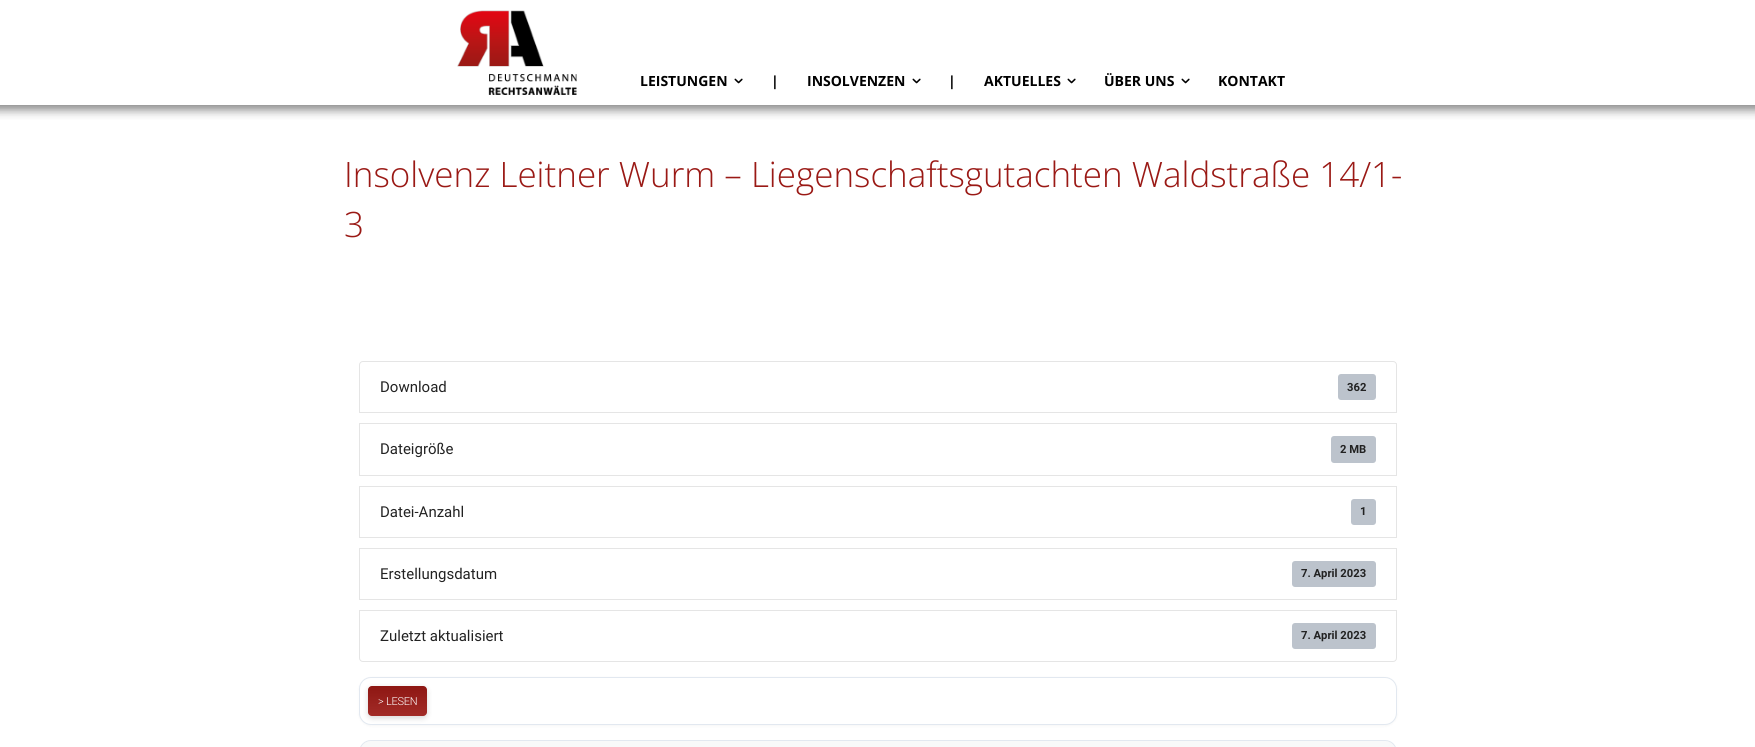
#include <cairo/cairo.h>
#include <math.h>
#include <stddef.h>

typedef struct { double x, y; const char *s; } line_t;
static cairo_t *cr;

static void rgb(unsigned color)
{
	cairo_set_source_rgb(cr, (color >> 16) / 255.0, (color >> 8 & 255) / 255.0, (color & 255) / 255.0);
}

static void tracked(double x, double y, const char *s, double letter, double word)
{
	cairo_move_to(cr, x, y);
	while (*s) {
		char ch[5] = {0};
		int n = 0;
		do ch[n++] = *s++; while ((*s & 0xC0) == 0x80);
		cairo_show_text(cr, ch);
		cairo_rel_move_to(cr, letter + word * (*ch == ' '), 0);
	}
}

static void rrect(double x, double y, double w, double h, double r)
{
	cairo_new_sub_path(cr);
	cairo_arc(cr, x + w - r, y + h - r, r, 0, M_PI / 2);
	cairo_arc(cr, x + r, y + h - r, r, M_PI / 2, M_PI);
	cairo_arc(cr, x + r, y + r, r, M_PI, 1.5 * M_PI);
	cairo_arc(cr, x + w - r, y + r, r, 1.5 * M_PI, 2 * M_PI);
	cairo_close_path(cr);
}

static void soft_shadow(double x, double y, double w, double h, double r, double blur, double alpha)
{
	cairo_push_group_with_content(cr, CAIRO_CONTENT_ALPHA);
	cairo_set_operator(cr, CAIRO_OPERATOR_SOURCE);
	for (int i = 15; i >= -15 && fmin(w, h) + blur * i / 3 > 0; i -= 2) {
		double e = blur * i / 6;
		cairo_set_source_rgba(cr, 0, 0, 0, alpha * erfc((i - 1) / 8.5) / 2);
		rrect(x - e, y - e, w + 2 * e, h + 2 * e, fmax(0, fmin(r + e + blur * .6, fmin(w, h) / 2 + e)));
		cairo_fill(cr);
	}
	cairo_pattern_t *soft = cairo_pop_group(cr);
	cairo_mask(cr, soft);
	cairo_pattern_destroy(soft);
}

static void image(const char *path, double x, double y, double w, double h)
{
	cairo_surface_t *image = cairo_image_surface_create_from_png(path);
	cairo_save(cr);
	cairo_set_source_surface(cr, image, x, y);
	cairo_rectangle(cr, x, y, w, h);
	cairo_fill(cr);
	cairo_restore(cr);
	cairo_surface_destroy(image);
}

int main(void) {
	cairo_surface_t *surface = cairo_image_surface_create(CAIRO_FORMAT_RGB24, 1755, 747);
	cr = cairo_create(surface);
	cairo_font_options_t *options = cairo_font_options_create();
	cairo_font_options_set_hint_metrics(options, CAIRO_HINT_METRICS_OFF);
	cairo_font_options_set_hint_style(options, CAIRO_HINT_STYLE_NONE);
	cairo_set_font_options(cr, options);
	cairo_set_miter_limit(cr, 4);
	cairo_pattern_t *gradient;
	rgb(0xffffff);
	cairo_paint(cr);
	cairo_save(cr);
	cairo_rectangle(cr, 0, 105, 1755, 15);
	cairo_clip(cr);
	rgb(0x888888);
	soft_shadow(-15, 5, 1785, 105, 0, 5, 1);
	cairo_restore(cr);
	image("img/1.png", 457, 10, 120, 85);
	image("img/2.png", 734, 78, 9, 6);
	image("img/2.png", 912, 78, 9, 6);
	image("img/2.png", 1067, 78, 9, 6);
	image("img/2.png", 1181, 78, 9, 6);
	cairo_new_path(cr);
	cairo_move_to(cr, 363, 361.5);
	cairo_line_to(cr, 1393, 361.5);
	cairo_curve_to(cr, 1395, 361.5, 1396.5, 363, 1396.5, 365);
	cairo_line_to(cr, 1396.5, 412.5);
	cairo_line_to(cr, 359.5, 412.5);
	cairo_line_to(cr, 359.5, 365);
	cairo_curve_to(cr, 359.5, 363, 361, 361.5, 363, 361.5);
	cairo_close_path(cr);
	rgb(0xe5e5e5);
	cairo_set_line_width(cr, 1);
	cairo_stroke(cr);
	rgb(0xbcc3cc);
	rrect(1338, 374, 38, 26, 3);
	cairo_fill(cr);
	cairo_rectangle(cr, 359.5, 423.5, 1037, 52);
	rgb(0xe5e5e5);
	cairo_stroke(cr);
	rgb(0xbcc3cc);
	rrect(1331, 436, 45, 27, 3);
	cairo_fill(cr);
	cairo_rectangle(cr, 359.5, 486.5, 1037, 51);
	rgb(0xe5e5e5);
	cairo_stroke(cr);
	rgb(0xbcc3cc);
	rrect(1351, 499, 25, 26, 3);
	cairo_fill(cr);
	cairo_rectangle(cr, 359.5, 548.5, 1037, 51);
	rgb(0xe5e5e5);
	cairo_stroke(cr);
	rgb(0xbcc3cc);
	rrect(1292, 561, 84, 26, 3);
	cairo_fill(cr);
	cairo_new_path(cr);
	cairo_move_to(cr, 359.5, 610.5);
	cairo_line_to(cr, 1396.5, 610.5);
	cairo_line_to(cr, 1396.5, 658);
	cairo_curve_to(cr, 1396.5, 660, 1395, 661.5, 1393, 661.5);
	cairo_line_to(cr, 363, 661.5);
	cairo_curve_to(cr, 361, 661.5, 359.5, 660, 359.5, 658);
	cairo_close_path(cr);
	rgb(0xe5e5e5);
	cairo_stroke(cr);
	rgb(0xbcc3cc);
	rrect(1292, 623, 84, 26, 3);
	cairo_fill(cr);
	rgb(0x000000);
	soft_shadow(359, 678, 1038, 48, 12, 1.5, 0.04);
	rgb(0xffffff);
	rrect(359.5, 677.5, 1037, 47, 11.5);
	cairo_fill_preserve(cr);
	rgb(0xe2e8f0);
	cairo_stroke(cr);
	rgb(0x000000);
	soft_shadow(368, 688, 59, 30, 4, 3, 0.15);
	rgb(0x9a1915);
	rrect(368, 686, 59, 30, 4);
	cairo_fill(cr);
	gradient = cairo_pattern_create_linear(398, 686, 398, 716);
	cairo_pattern_add_color_stop_rgba(gradient, 0, 0, 0, 0, 0.08);
	cairo_pattern_add_color_stop_rgba(gradient, 1, 1, 1, 1, 0.08);
	cairo_set_source(cr, gradient);
	cairo_pattern_destroy(gradient);
	rrect(368, 686, 59, 30, 4);
	cairo_fill(cr);
	rrect(359.5, 740.5, 1037, 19, 11.5);
	rgb(0xe2e8f0);
	cairo_stroke(cr);
	cairo_set_source_rgba(cr, 0.796, 0.816, 0.839, 0.13);
	cairo_new_path(cr);
	cairo_move_to(cr, 371, 741);
	cairo_line_to(cr, 1385, 741);
	cairo_curve_to(cr, 1391, 741, 1396, 746, 1396, 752);
	cairo_line_to(cr, 1396, 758);
	cairo_line_to(cr, 360, 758);
	cairo_line_to(cr, 360, 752);
	cairo_curve_to(cr, 360, 746, 365, 741, 371, 741);
	cairo_close_path(cr);
	cairo_fill(cr);
	cairo_select_font_face(cr, "Open Sans", CAIRO_FONT_SLANT_NORMAL, CAIRO_FONT_WEIGHT_BOLD);
	cairo_set_font_size(cr, 14);
	rgb(0x000000);
	{
		static const line_t items[] = {
			{640, 86, "LEISTUNGEN"},
			{771, 86, "|"},
			{807, 86, "INSOLVENZEN"},
			{948, 86, "|"},
			{984, 86, "AKTUELLES"},
			{1104, 86, "ÜBER UNS"},
			{1218, 86, "KONTAKT"},
		};
		for (size_t i = 0; i < sizeof items / sizeof *items; i++) {
			cairo_move_to(cr, items[i].x, items[i].y);
			cairo_show_text(cr, items[i].s);
		}
	}
	cairo_select_font_face(cr, "Open Sans Light", CAIRO_FONT_SLANT_NORMAL, CAIRO_FONT_WEIGHT_NORMAL);
	cairo_set_font_size(cr, 35);
	rgb(0x9a1915);
	cairo_move_to(cr, 344, 187);
	cairo_show_text(cr, "Insolvenz Leitner Wurm – Liegenschaftsgutachten Waldstraße 14/1-");
	cairo_move_to(cr, 344, 237);
	cairo_show_text(cr, "3");
	cairo_select_font_face(cr, "Roboto", CAIRO_FONT_SLANT_NORMAL, CAIRO_FONT_WEIGHT_NORMAL);
	cairo_set_font_size(cr, 15);
	rgb(0x222222);
	cairo_move_to(cr, 380, 392);
	cairo_show_text(cr, "Download");
	cairo_select_font_face(cr, "Roboto", CAIRO_FONT_SLANT_NORMAL, CAIRO_FONT_WEIGHT_BOLD);
	cairo_set_font_size(cr, 11.25);
	cairo_move_to(cr, 1347, 391);
	cairo_show_text(cr, "362");
	cairo_select_font_face(cr, "Roboto", CAIRO_FONT_SLANT_NORMAL, CAIRO_FONT_WEIGHT_NORMAL);
	cairo_set_font_size(cr, 15);
	cairo_move_to(cr, 380, 454);
	cairo_show_text(cr, "Dateigröße");
	cairo_select_font_face(cr, "Roboto", CAIRO_FONT_SLANT_NORMAL, CAIRO_FONT_WEIGHT_BOLD);
	cairo_set_font_size(cr, 11.25);
	cairo_move_to(cr, 1340, 453);
	cairo_show_text(cr, "2 MB");
	cairo_select_font_face(cr, "Roboto", CAIRO_FONT_SLANT_NORMAL, CAIRO_FONT_WEIGHT_NORMAL);
	cairo_set_font_size(cr, 15);
	cairo_move_to(cr, 380, 517);
	cairo_show_text(cr, "Datei-Anzahl");
	cairo_select_font_face(cr, "Roboto", CAIRO_FONT_SLANT_NORMAL, CAIRO_FONT_WEIGHT_BOLD);
	cairo_set_font_size(cr, 11.25);
	cairo_move_to(cr, 1360, 515);
	cairo_show_text(cr, "1");
	cairo_select_font_face(cr, "Roboto", CAIRO_FONT_SLANT_NORMAL, CAIRO_FONT_WEIGHT_NORMAL);
	cairo_set_font_size(cr, 15);
	cairo_move_to(cr, 380, 579);
	cairo_show_text(cr, "Erstellungsdatum");
	cairo_select_font_face(cr, "Roboto", CAIRO_FONT_SLANT_NORMAL, CAIRO_FONT_WEIGHT_BOLD);
	cairo_set_font_size(cr, 11.25);
	cairo_move_to(cr, 1301, 577);
	cairo_show_text(cr, "7. April 2023");
	cairo_select_font_face(cr, "Roboto", CAIRO_FONT_SLANT_NORMAL, CAIRO_FONT_WEIGHT_NORMAL);
	cairo_set_font_size(cr, 15);
	cairo_move_to(cr, 380, 641);
	cairo_show_text(cr, "Zuletzt aktualisiert");
	cairo_select_font_face(cr, "Roboto", CAIRO_FONT_SLANT_NORMAL, CAIRO_FONT_WEIGHT_BOLD);
	cairo_set_font_size(cr, 11.25);
	cairo_move_to(cr, 1301, 639);
	cairo_show_text(cr, "7. April 2023");
	cairo_select_font_face(cr, "Roboto Light", CAIRO_FONT_SLANT_NORMAL, CAIRO_FONT_WEIGHT_NORMAL);
	cairo_set_font_size(cr, 11);
	rgb(0xffffff);
	tracked(378, 705, "> LESEN", -0.25, 0);
	cairo_surface_write_to_png(surface, "page.png");
	cairo_font_options_destroy(options);
	cairo_destroy(cr);
	cairo_surface_destroy(surface);
	return 0;
}
